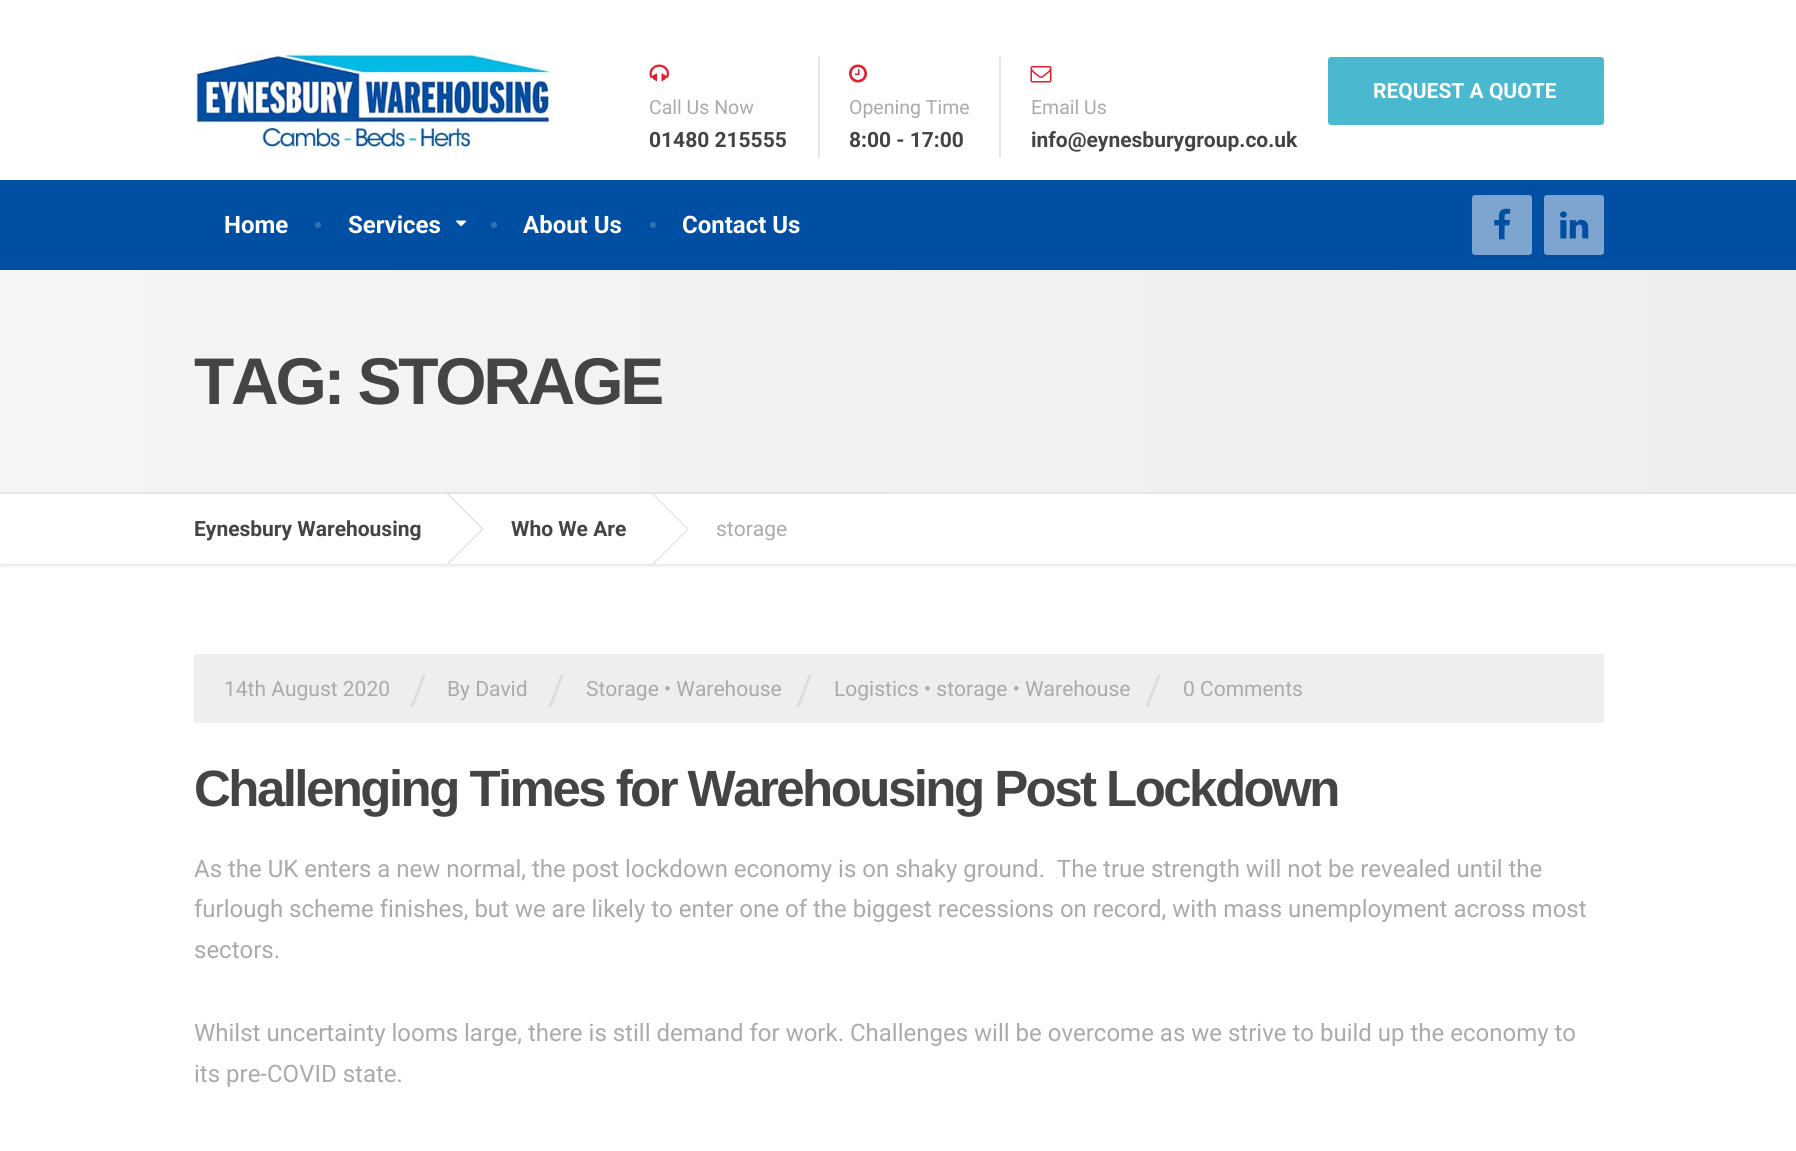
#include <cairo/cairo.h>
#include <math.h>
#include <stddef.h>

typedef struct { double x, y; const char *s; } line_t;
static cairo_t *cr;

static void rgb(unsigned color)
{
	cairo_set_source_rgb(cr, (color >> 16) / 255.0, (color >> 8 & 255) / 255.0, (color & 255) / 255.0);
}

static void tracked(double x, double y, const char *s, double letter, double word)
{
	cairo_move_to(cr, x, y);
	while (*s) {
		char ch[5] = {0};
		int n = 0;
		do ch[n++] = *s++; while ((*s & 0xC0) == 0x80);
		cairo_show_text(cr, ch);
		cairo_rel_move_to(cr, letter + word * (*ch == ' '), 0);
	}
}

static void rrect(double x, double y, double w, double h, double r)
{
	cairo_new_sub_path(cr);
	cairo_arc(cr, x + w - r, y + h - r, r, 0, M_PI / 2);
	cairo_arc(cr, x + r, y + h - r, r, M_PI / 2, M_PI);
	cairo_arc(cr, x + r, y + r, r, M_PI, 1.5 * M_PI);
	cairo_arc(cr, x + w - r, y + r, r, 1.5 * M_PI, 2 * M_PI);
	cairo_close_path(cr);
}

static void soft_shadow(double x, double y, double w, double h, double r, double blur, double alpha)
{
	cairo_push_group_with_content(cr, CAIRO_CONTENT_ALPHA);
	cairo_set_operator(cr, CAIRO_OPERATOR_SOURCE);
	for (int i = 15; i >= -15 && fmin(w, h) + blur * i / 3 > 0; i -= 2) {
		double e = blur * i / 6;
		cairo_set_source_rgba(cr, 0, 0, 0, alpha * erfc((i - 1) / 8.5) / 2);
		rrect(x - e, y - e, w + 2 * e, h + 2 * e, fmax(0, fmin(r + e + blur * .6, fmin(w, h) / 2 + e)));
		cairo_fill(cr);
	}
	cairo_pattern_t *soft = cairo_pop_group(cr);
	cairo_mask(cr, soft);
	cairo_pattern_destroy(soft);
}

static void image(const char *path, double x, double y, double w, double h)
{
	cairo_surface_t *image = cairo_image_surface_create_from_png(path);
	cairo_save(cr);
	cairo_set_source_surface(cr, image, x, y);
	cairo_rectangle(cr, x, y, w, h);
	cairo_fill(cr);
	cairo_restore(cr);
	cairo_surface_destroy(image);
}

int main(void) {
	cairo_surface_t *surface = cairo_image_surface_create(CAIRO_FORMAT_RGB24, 1796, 1151);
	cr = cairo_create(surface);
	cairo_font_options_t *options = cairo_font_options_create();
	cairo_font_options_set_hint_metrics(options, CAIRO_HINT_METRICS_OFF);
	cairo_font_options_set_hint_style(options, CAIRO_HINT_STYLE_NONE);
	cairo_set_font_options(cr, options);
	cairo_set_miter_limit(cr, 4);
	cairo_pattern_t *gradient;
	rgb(0xffffff);
	cairo_paint(cr);
	rgb(0x004fa3);
	cairo_rectangle(cr, 0, 180, 1796, 90);
	cairo_fill(cr);
	image("img/1.png", 193, 52, 359, 98);
	rgb(0x4ab9cf);
	rrect(1329, 58, 274, 66, 2);
	cairo_fill_preserve(cr);
	cairo_stroke(cr);
	image("img/2.png", 649, 64, 20, 17);
	rgb(0xe6e6e6);
	cairo_rectangle(cr, 818, 57, 2, 101);
	cairo_fill(cr);
	image("img/3.png", 849, 64, 18, 19);
	cairo_rectangle(cr, 999, 57, 2, 101);
	cairo_fill(cr);
	image("img/4.png", 1030, 66, 22, 17);
	rgb(0x3271b4);
	cairo_arc(cr, 318, 225, 3, 0, 2 * M_PI);
	cairo_fill(cr);
	cairo_arc(cr, 494, 225, 3, 0, 2 * M_PI);
	cairo_fill(cr);
	image("img/5.png", 456, 220, 11, 7);
	cairo_arc(cr, 653, 225, 3, 0, 2 * M_PI);
	cairo_fill(cr);
	rgb(0x7da5cf);
	rrect(1472, 195, 60, 60, 3);
	cairo_fill(cr);
	image("img/6.png", 1494, 208, 17, 32);
	rrect(1544, 195, 60, 60, 3);
	cairo_fill(cr);
	image("img/7.png", 1560, 211, 29, 28);
	gradient = cairo_pattern_create_linear(0, 381, 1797, 381);
	cairo_pattern_add_color_stop_rgba(gradient, 0, 0.961, 0.961, 0.961, 1);
	cairo_pattern_add_color_stop_rgba(gradient, 1, 0.933, 0.933, 0.933, 1);
	cairo_set_source(cr, gradient);
	cairo_pattern_destroy(gradient);
	cairo_rectangle(cr, 0, 270, 1796, 222);
	cairo_fill(cr);
	cairo_save(cr);
	cairo_set_fill_rule(cr, CAIRO_FILL_RULE_EVEN_ODD);
	cairo_new_path(cr);
	cairo_move_to(cr, 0, 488);
	cairo_line_to(cr, 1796, 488);
	cairo_line_to(cr, 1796, 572);
	cairo_line_to(cr, 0, 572);
	cairo_close_path(cr);
	cairo_move_to(cr, 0, 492);
	cairo_line_to(cr, 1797, 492);
	cairo_line_to(cr, 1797, 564);
	cairo_line_to(cr, 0, 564);
	cairo_close_path(cr);
	cairo_clip(cr);
	rgb(0xe6e6e6);
	soft_shadow(0, 494, 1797, 72, 0, 1.5, 1);
	cairo_restore(cr);
	rgb(0xe6e6e6);
	cairo_rectangle(cr, 0, 492, 1796, 2);
	cairo_fill(cr);
	cairo_new_path(cr);
	cairo_move_to(cr, 447, 494.5);
	cairo_line_to(cr, 448.5, 493.5);
	cairo_line_to(cr, 483.5, 528.5);
	cairo_line_to(cr, 482, 529.5);
	cairo_close_path(cr);
	cairo_fill(cr);
	cairo_new_path(cr);
	cairo_move_to(cr, 482, 528.5);
	cairo_line_to(cr, 483.5, 529.5);
	cairo_line_to(cr, 448.5, 564.5);
	cairo_line_to(cr, 447, 563.5);
	cairo_close_path(cr);
	cairo_fill(cr);
	cairo_new_path(cr);
	cairo_move_to(cr, 652.5, 494.5);
	cairo_line_to(cr, 653.5, 493.5);
	cairo_line_to(cr, 688.5, 528.5);
	cairo_line_to(cr, 687.5, 529.5);
	cairo_close_path(cr);
	cairo_fill(cr);
	cairo_new_path(cr);
	cairo_move_to(cr, 687.5, 528.5);
	cairo_line_to(cr, 688.5, 529.5);
	cairo_line_to(cr, 653.5, 564.5);
	cairo_line_to(cr, 652.5, 563.5);
	cairo_close_path(cr);
	cairo_fill(cr);
	rgb(0xeeeeee);
	cairo_rectangle(cr, 194, 654, 1410, 69);
	cairo_fill(cr);
	cairo_select_font_face(cr, "Roboto", CAIRO_FONT_SLANT_NORMAL, CAIRO_FONT_WEIGHT_BOLD);
	cairo_set_font_size(cr, 21);
	rgb(0xffffff);
	cairo_move_to(cr, 1373, 98);
	cairo_show_text(cr, "REQUEST A QUOTE");
	cairo_select_font_face(cr, "Roboto", CAIRO_FONT_SLANT_NORMAL, CAIRO_FONT_WEIGHT_NORMAL);
	cairo_set_font_size(cr, 19.5);
	rgb(0xaaaaaa);
	cairo_move_to(cr, 649, 114);
	cairo_show_text(cr, "Call Us Now");
	cairo_select_font_face(cr, "Roboto", CAIRO_FONT_SLANT_NORMAL, CAIRO_FONT_WEIGHT_BOLD);
	cairo_set_font_size(cr, 21);
	rgb(0x444444);
	cairo_move_to(cr, 649, 147);
	cairo_show_text(cr, "01480 215555");
	cairo_select_font_face(cr, "Roboto", CAIRO_FONT_SLANT_NORMAL, CAIRO_FONT_WEIGHT_NORMAL);
	cairo_set_font_size(cr, 19.5);
	rgb(0xaaaaaa);
	cairo_move_to(cr, 849, 114);
	cairo_show_text(cr, "Opening Time");
	cairo_select_font_face(cr, "Roboto", CAIRO_FONT_SLANT_NORMAL, CAIRO_FONT_WEIGHT_BOLD);
	cairo_set_font_size(cr, 21);
	rgb(0x444444);
	cairo_move_to(cr, 849, 147);
	cairo_show_text(cr, "8:00 - 17:00");
	cairo_select_font_face(cr, "Roboto", CAIRO_FONT_SLANT_NORMAL, CAIRO_FONT_WEIGHT_NORMAL);
	cairo_set_font_size(cr, 19.5);
	rgb(0xaaaaaa);
	cairo_move_to(cr, 1031, 114);
	cairo_show_text(cr, "Email Us");
	cairo_select_font_face(cr, "Roboto", CAIRO_FONT_SLANT_NORMAL, CAIRO_FONT_WEIGHT_BOLD);
	cairo_set_font_size(cr, 21);
	rgb(0x444444);
	cairo_move_to(cr, 1031, 147);
	cairo_show_text(cr, "info@eynesburygroup.co.uk");
	cairo_set_font_size(cr, 24);
	rgb(0xffffff);
	{
		static const line_t items[] = {
			{224, 233, "Home"},
			{348, 233, "Services"},
			{523, 233, "About Us"},
			{682, 233, "Contact Us"},
		};
		for (size_t i = 0; i < sizeof items / sizeof *items; i++) {
			cairo_move_to(cr, items[i].x, items[i].y);
			cairo_show_text(cr, items[i].s);
		}
	}
	cairo_select_font_face(cr, "Liberation Sans", CAIRO_FONT_SLANT_NORMAL, CAIRO_FONT_WEIGHT_BOLD);
	cairo_set_font_size(cr, 66);
	rgb(0x444444);
	tracked(194, 404, "TAG: STORAGE", -3.25, 0);
	cairo_select_font_face(cr, "Roboto", CAIRO_FONT_SLANT_NORMAL, CAIRO_FONT_WEIGHT_BOLD);
	cairo_set_font_size(cr, 21);
	cairo_move_to(cr, 194, 536);
	cairo_show_text(cr, "Eynesbury Warehousing");
	cairo_move_to(cr, 511, 536);
	cairo_show_text(cr, "Who We Are");
	cairo_select_font_face(cr, "Roboto", CAIRO_FONT_SLANT_NORMAL, CAIRO_FONT_WEIGHT_NORMAL);
	rgb(0xaaaaaa);
	cairo_move_to(cr, 716, 536);
	cairo_show_text(cr, "storage");
	cairo_move_to(cr, 224, 696);
	cairo_show_text(cr, "14th August 2020");
	cairo_set_font_size(cr, 42);
	rgb(0xdddddd);
	cairo_move_to(cr, 410, 704);
	cairo_show_text(cr, "/");
	cairo_set_font_size(cr, 21);
	rgb(0xaaaaaa);
	cairo_move_to(cr, 447, 696);
	cairo_show_text(cr, "By David");
	cairo_set_font_size(cr, 42);
	rgb(0xdddddd);
	cairo_move_to(cr, 548, 704);
	cairo_show_text(cr, "/");
	cairo_set_font_size(cr, 21);
	rgb(0xaaaaaa);
	cairo_move_to(cr, 586, 696);
	cairo_show_text(cr, "Storage • Warehouse");
	cairo_set_font_size(cr, 42);
	rgb(0xdddddd);
	cairo_move_to(cr, 796, 704);
	cairo_show_text(cr, "/");
	cairo_set_font_size(cr, 21);
	rgb(0xaaaaaa);
	cairo_move_to(cr, 834, 696);
	cairo_show_text(cr, "Logistics • storage • Warehouse");
	cairo_set_font_size(cr, 42);
	rgb(0xdddddd);
	cairo_move_to(cr, 1145, 704);
	cairo_show_text(cr, "/");
	cairo_set_font_size(cr, 21);
	rgb(0xaaaaaa);
	cairo_move_to(cr, 1183, 696);
	cairo_show_text(cr, "0 Comments");
	cairo_select_font_face(cr, "Liberation Sans", CAIRO_FONT_SLANT_NORMAL, CAIRO_FONT_WEIGHT_BOLD);
	cairo_set_font_size(cr, 51);
	rgb(0x444444);
	tracked(194, 806, "Challenging Times for Warehousing Post Lockdown", -2.55, 0);
	cairo_select_font_face(cr, "Roboto", CAIRO_FONT_SLANT_NORMAL, CAIRO_FONT_WEIGHT_NORMAL);
	cairo_set_font_size(cr, 24);
	rgb(0xaaaaaa);
	{
		static const line_t items[] = {
			{194, 877, "As the UK enters a new normal, the post lockdown economy is on shaky ground.  The true strength will not be revealed until the"},
			{194, 917, "furlough scheme finishes, but we are likely to enter one of the biggest recessions on record, with mass unemployment across most"},
			{194, 958, "sectors."},
			{194, 1041, "Whilst uncertainty looms large, there is still demand for work. Challenges will be overcome as we strive to build up the economy to"},
			{194, 1082, "its pre-COVID state."},
		};
		for (size_t i = 0; i < sizeof items / sizeof *items; i++) {
			cairo_move_to(cr, items[i].x, items[i].y);
			cairo_show_text(cr, items[i].s);
		}
	}
	cairo_surface_write_to_png(surface, "page.png");
	cairo_font_options_destroy(options);
	cairo_destroy(cr);
	cairo_surface_destroy(surface);
	return 0;
}
